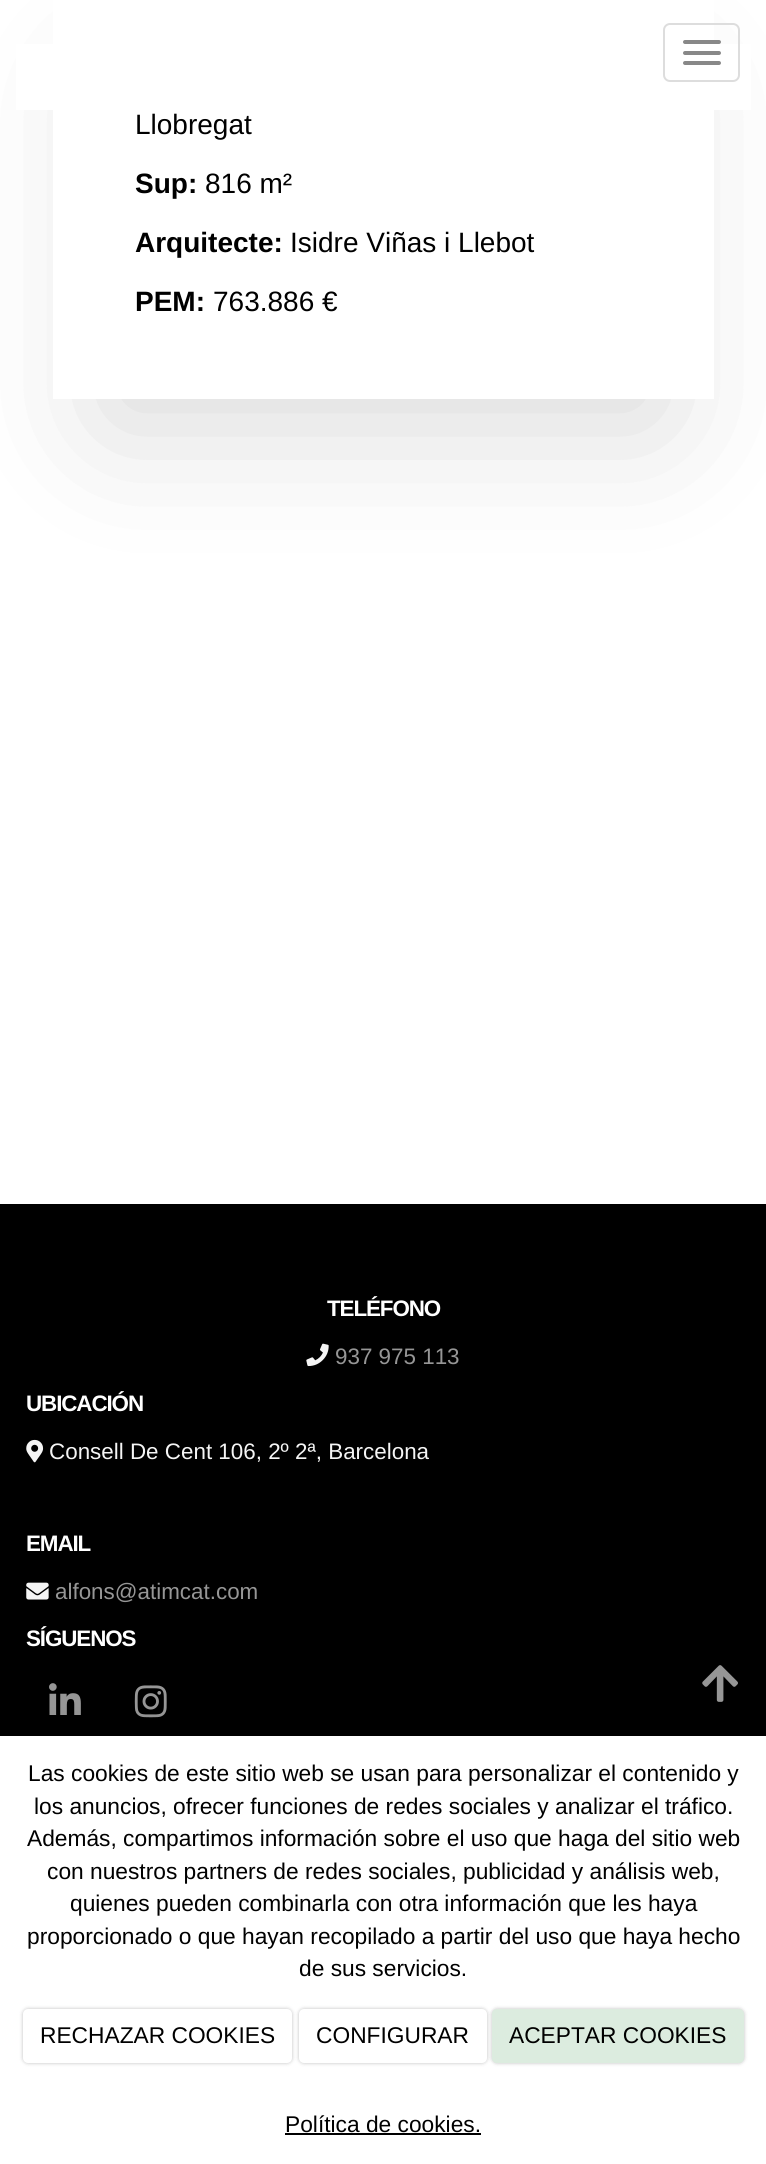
#include <cairo/cairo.h>
#include <math.h>
#include <stddef.h>

typedef struct { double x, y; const char *s; } line_t;
static cairo_t *cr;

static void rgb(unsigned color)
{
	cairo_set_source_rgb(cr, (color >> 16) / 255.0, (color >> 8 & 255) / 255.0, (color & 255) / 255.0);
}

static void tracked(double x, double y, const char *s, double letter, double word)
{
	cairo_move_to(cr, x, y);
	while (*s) {
		char ch[5] = {0};
		int n = 0;
		do ch[n++] = *s++; while ((*s & 0xC0) == 0x80);
		cairo_show_text(cr, ch);
		cairo_rel_move_to(cr, letter + word * (*ch == ' '), 0);
	}
}

static void rrect(double x, double y, double w, double h, double r)
{
	cairo_new_sub_path(cr);
	cairo_arc(cr, x + w - r, y + h - r, r, 0, M_PI / 2);
	cairo_arc(cr, x + r, y + h - r, r, M_PI / 2, M_PI);
	cairo_arc(cr, x + r, y + r, r, M_PI, 1.5 * M_PI);
	cairo_arc(cr, x + w - r, y + r, r, 1.5 * M_PI, 2 * M_PI);
	cairo_close_path(cr);
}

static void soft_shadow(double x, double y, double w, double h, double r, double blur, double alpha)
{
	cairo_push_group_with_content(cr, CAIRO_CONTENT_ALPHA);
	cairo_set_operator(cr, CAIRO_OPERATOR_SOURCE);
	for (int i = 15; i >= -15 && fmin(w, h) + blur * i / 3 > 0; i -= 2) {
		double e = blur * i / 6;
		cairo_set_source_rgba(cr, 0, 0, 0, alpha * erfc((i - 1) / 8.5) / 2);
		rrect(x - e, y - e, w + 2 * e, h + 2 * e, fmax(0, fmin(r + e + blur * .6, fmin(w, h) / 2 + e)));
		cairo_fill(cr);
	}
	cairo_pattern_t *soft = cairo_pop_group(cr);
	cairo_mask(cr, soft);
	cairo_pattern_destroy(soft);
}

static void image(const char *path, double x, double y, double w, double h)
{
	cairo_surface_t *image = cairo_image_surface_create_from_png(path);
	cairo_save(cr);
	cairo_set_source_surface(cr, image, x, y);
	cairo_rectangle(cr, x, y, w, h);
	cairo_fill(cr);
	cairo_restore(cr);
	cairo_surface_destroy(image);
}

int main(void) {
	cairo_surface_t *surface = cairo_image_surface_create(CAIRO_FORMAT_RGB24, 766, 2164);
	cr = cairo_create(surface);
	cairo_font_options_t *options = cairo_font_options_create();
	cairo_font_options_set_hint_metrics(options, CAIRO_HINT_METRICS_OFF);
	cairo_font_options_set_hint_style(options, CAIRO_HINT_STYLE_NONE);
	cairo_set_font_options(cr, options);
	cairo_set_miter_limit(cr, 4);
	rgb(0xffffff);
	cairo_paint(cr);
	cairo_save(cr);
	cairo_set_fill_rule(cr, CAIRO_FILL_RULE_EVEN_ODD);
	cairo_new_path(cr);
	cairo_move_to(cr, 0, 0);
	cairo_line_to(cr, 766, 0);
	cairo_line_to(cr, 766, 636);
	cairo_line_to(cr, 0, 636);
	cairo_close_path(cr);
	cairo_move_to(cr, 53, -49);
	cairo_line_to(cr, 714, -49);
	cairo_line_to(cr, 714, 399);
	cairo_line_to(cr, 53, 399);
	cairo_close_path(cr);
	cairo_clip(cr);
	rgb(0x000000);
	soft_shadow(105, 82, 557, 343, 0, 70, 0.15);
	cairo_restore(cr);
	rgb(0xffffff);
	cairo_rectangle(cr, 16, 44, 735, 66);
	cairo_fill(cr);
	rrect(664, 24, 75, 57, 6);
	rgb(0xdddddd);
	cairo_stroke(cr);
	rgb(0x888888);
	rrect(683, 40, 38, 4, 2);
	cairo_fill(cr);
	rrect(683, 51, 38, 4, 2);
	cairo_fill(cr);
	rrect(683, 61, 38, 4, 2);
	cairo_fill(cr);
	rgb(0x000000);
	cairo_rectangle(cr, 0, 1204, 766, 532);
	cairo_fill(cr);
	image("img/1.png", 306, 1343, 23, 24);
	image("img/2.png", 26, 1439, 18, 24);
	image("img/3.png", 26, 1582, 23, 18);
	image("img/4.png", 49, 1683, 32, 32);
	image("img/5.png", 134, 1685, 33, 33);
	image("img/6.png", 702, 1665, 36, 37);
	rgb(0x000000);
	soft_shadow(0, 1736, 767, 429, 0, 11.5, 0.6);
	rgb(0xffffff);
	cairo_rectangle(cr, 0, 1736, 766, 428);
	cairo_fill(cr);
	rgb(0x000000);
	soft_shadow(23, 2009, 269, 54, 5, 2, 0.25);
	rgb(0xffffff);
	rrect(23, 2009, 269, 54, 5);
	cairo_fill(cr);
	rgb(0x000000);
	soft_shadow(299, 2009, 188, 54, 5, 2, 0.25);
	rgb(0xffffff);
	rrect(299, 2009, 188, 54, 5);
	cairo_fill(cr);
	rgb(0x000000);
	soft_shadow(492, 2009, 252, 54, 5, 2, 0.25);
	rgb(0xdcecdf);
	rrect(492, 2009, 252, 54, 5);
	cairo_fill(cr);
	rgb(0x000000);
	cairo_rectangle(cr, 285, 2133, 196, 2);
	cairo_fill(cr);
	cairo_select_font_face(cr, "Liberation Sans", CAIRO_FONT_SLANT_NORMAL, CAIRO_FONT_WEIGHT_NORMAL);
	cairo_set_font_size(cr, 28);
	cairo_move_to(cr, 135, 134);
	cairo_show_text(cr, "Llobregat");
	cairo_select_font_face(cr, "Liberation Sans", CAIRO_FONT_SLANT_NORMAL, CAIRO_FONT_WEIGHT_BOLD);
	cairo_move_to(cr, 135, 193);
	cairo_show_text(cr, "Sup:");
	cairo_select_font_face(cr, "Liberation Sans", CAIRO_FONT_SLANT_NORMAL, CAIRO_FONT_WEIGHT_NORMAL);
	cairo_move_to(cr, 205, 193);
	cairo_show_text(cr, "816 m²");
	cairo_select_font_face(cr, "Liberation Sans", CAIRO_FONT_SLANT_NORMAL, CAIRO_FONT_WEIGHT_BOLD);
	cairo_move_to(cr, 135, 252);
	cairo_show_text(cr, "Arquitecte:");
	cairo_select_font_face(cr, "Liberation Sans", CAIRO_FONT_SLANT_NORMAL, CAIRO_FONT_WEIGHT_NORMAL);
	cairo_move_to(cr, 290, 252);
	cairo_show_text(cr, "Isidre Viñas i Llebot");
	cairo_select_font_face(cr, "Liberation Sans", CAIRO_FONT_SLANT_NORMAL, CAIRO_FONT_WEIGHT_BOLD);
	cairo_move_to(cr, 135, 311);
	cairo_show_text(cr, "PEM:");
	cairo_select_font_face(cr, "Liberation Sans", CAIRO_FONT_SLANT_NORMAL, CAIRO_FONT_WEIGHT_NORMAL);
	cairo_move_to(cr, 213, 311);
	cairo_show_text(cr, "763.886 €");
	cairo_select_font_face(cr, "Liberation Sans", CAIRO_FONT_SLANT_NORMAL, CAIRO_FONT_WEIGHT_BOLD);
	cairo_set_font_size(cr, 22.4);
	rgb(0xffffff);
	tracked(327, 1316, "TELÉFONO", -1.1, 0);
	cairo_select_font_face(cr, "Liberation Sans", CAIRO_FONT_SLANT_NORMAL, CAIRO_FONT_WEIGHT_NORMAL);
	rgb(0x969696);
	cairo_move_to(cr, 335, 1364);
	cairo_show_text(cr, "937 975 113");
	cairo_select_font_face(cr, "Liberation Sans", CAIRO_FONT_SLANT_NORMAL, CAIRO_FONT_WEIGHT_BOLD);
	rgb(0xffffff);
	tracked(26, 1411, "UBICACIÓN", -1.1, 0);
	cairo_select_font_face(cr, "Liberation Sans", CAIRO_FONT_SLANT_NORMAL, CAIRO_FONT_WEIGHT_NORMAL);
	rgb(0xf5f5f5);
	cairo_move_to(cr, 49, 1459);
	cairo_show_text(cr, "Consell De Cent 106, 2º 2ª, Barcelona");
	cairo_select_font_face(cr, "Liberation Sans", CAIRO_FONT_SLANT_NORMAL, CAIRO_FONT_WEIGHT_BOLD);
	rgb(0xffffff);
	tracked(26, 1551, "EMAIL", -1.1, 0);
	cairo_select_font_face(cr, "Liberation Sans", CAIRO_FONT_SLANT_NORMAL, CAIRO_FONT_WEIGHT_NORMAL);
	rgb(0x969696);
	cairo_move_to(cr, 55, 1599);
	cairo_show_text(cr, "alfons@atimcat.com");
	cairo_select_font_face(cr, "Liberation Sans", CAIRO_FONT_SLANT_NORMAL, CAIRO_FONT_WEIGHT_BOLD);
	rgb(0xffffff);
	tracked(26, 1646, "SÍGUENOS", -1.1, 0);
	cairo_select_font_face(cr, "Liberation Sans", CAIRO_FONT_SLANT_NORMAL, CAIRO_FONT_WEIGHT_NORMAL);
	cairo_set_font_size(cr, 22.75);
	rgb(0x000000);
	{
		static const line_t items[] = {
			{28, 1781, "Las cookies de este sitio web se usan para personalizar el contenido y"},
			{34, 1814, "los anuncios, ofrecer funciones de redes sociales y analizar el tráfico."},
			{27, 1846, "Además, compartimos información sobre el uso que haga del sitio web"},
			{47, 1879, "con nuestros partners de redes sociales, publicidad y análisis web,"},
			{70, 1911, "quienes pueden combinarla con otra información que les haya"},
			{27, 1944, "proporcionado o que hayan recopilado a partir del uso que haya hecho"},
			{299, 1976, "de sus servicios."},
			{40, 2043, "RECHAZAR COOKIES"},
			{316, 2043, "CONFIGURAR"},
			{509, 2043, "ACEPTAR COOKIES"},
			{285, 2132, "Política de cookies."},
		};
		for (size_t i = 0; i < sizeof items / sizeof *items; i++) {
			cairo_move_to(cr, items[i].x, items[i].y);
			cairo_show_text(cr, items[i].s);
		}
	}
	cairo_surface_write_to_png(surface, "page.png");
	cairo_font_options_destroy(options);
	cairo_destroy(cr);
	cairo_surface_destroy(surface);
	return 0;
}
